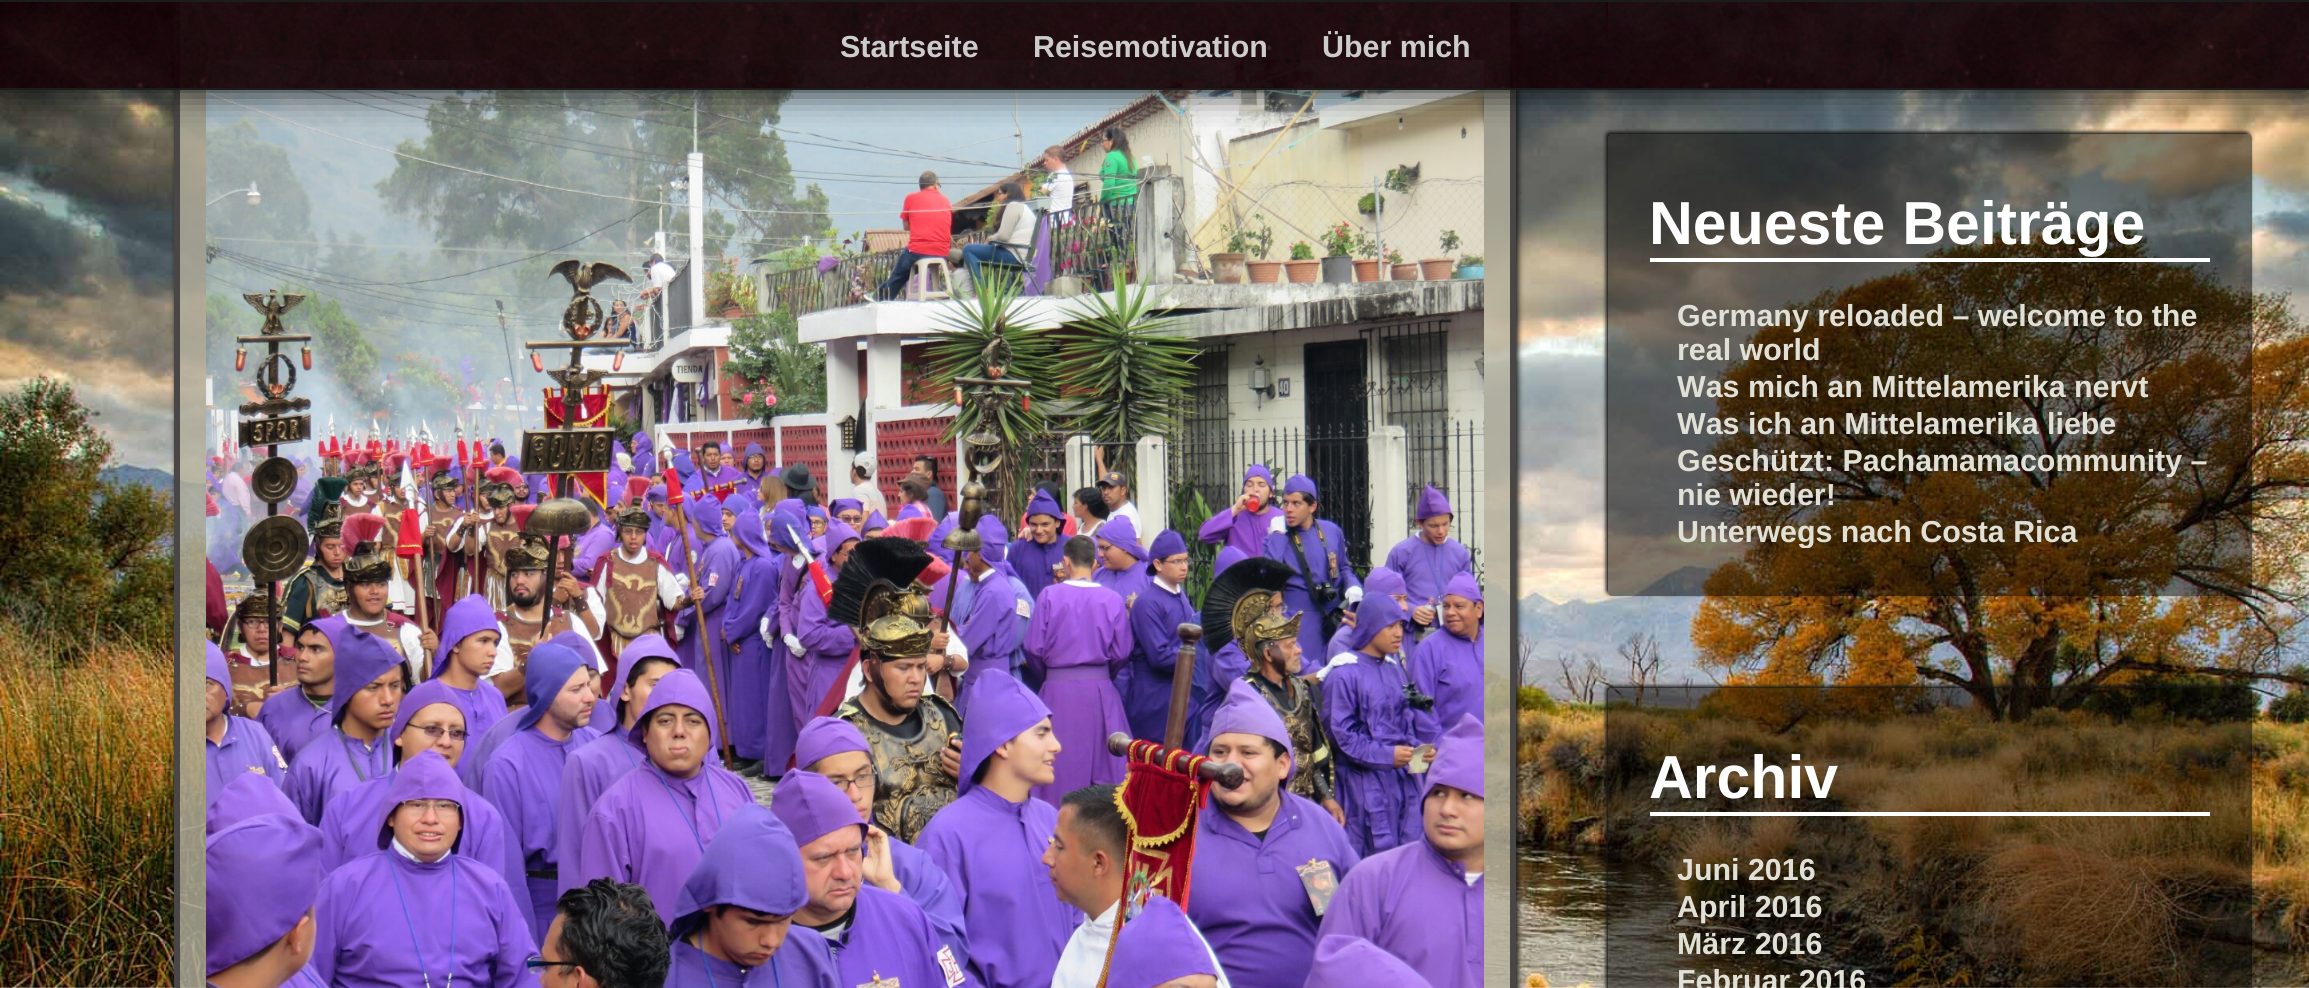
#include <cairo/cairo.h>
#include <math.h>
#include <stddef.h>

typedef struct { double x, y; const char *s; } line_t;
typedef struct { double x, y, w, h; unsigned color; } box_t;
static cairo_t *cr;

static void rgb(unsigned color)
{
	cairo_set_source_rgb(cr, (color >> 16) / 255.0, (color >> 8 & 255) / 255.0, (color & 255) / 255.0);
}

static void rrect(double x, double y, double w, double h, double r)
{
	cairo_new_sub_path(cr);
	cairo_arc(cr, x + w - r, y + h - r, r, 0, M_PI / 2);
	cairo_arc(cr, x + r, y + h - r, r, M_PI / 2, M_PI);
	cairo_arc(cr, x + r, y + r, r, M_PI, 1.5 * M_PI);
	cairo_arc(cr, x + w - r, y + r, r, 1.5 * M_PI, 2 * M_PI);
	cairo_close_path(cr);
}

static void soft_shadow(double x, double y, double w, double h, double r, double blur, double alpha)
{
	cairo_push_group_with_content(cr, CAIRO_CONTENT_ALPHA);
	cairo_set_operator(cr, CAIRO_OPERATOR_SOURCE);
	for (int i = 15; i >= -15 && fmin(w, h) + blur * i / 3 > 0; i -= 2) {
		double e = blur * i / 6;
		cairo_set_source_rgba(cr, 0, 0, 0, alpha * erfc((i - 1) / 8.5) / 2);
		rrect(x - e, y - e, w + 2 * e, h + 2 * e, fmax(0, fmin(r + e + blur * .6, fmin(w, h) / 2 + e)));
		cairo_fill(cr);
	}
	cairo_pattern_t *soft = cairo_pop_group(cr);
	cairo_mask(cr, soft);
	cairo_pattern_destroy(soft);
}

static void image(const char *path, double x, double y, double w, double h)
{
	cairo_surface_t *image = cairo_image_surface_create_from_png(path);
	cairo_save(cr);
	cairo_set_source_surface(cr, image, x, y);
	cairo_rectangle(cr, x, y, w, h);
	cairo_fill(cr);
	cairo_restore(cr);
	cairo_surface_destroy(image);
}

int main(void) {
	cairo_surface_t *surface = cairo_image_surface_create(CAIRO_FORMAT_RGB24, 2309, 988);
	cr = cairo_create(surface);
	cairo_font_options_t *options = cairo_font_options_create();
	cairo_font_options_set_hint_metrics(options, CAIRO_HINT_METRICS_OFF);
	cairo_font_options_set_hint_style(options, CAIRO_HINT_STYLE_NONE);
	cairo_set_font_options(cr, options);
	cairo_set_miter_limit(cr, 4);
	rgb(0xffffff);
	cairo_paint(cr);
	image("img/1.png", 0, 2, 2309, 986);
	cairo_save(cr);
	cairo_set_fill_rule(cr, CAIRO_FILL_RULE_EVEN_ODD);
	cairo_new_path(cr);
	cairo_move_to(cr, 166, 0);
	cairo_line_to(cr, 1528, 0);
	cairo_line_to(cr, 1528, 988);
	cairo_line_to(cr, 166, 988);
	cairo_close_path(cr);
	cairo_move_to(cr, 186, -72);
	cairo_line_to(cr, 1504, -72);
	cairo_curve_to(cr, 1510.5, -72, 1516, -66.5, 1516, -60);
	cairo_line_to(cr, 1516, 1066);
	cairo_curve_to(cr, 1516, 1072.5, 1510.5, 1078, 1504, 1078);
	cairo_line_to(cr, 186, 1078);
	cairo_curve_to(cr, 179.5, 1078, 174, 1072.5, 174, 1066);
	cairo_line_to(cr, 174, -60);
	cairo_curve_to(cr, 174, -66.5, 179.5, -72, 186, -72);
	cairo_close_path(cr);
	cairo_clip(cr);
	rgb(0x111111);
	soft_shadow(176, -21, 1342, 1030, 12, 3, 1);
	cairo_restore(cr);
	cairo_set_source_rgba(cr, 0.706, 0.69, 0.616, 0.8);
	cairo_rectangle(cr, 180, 2, 1330, 986);
	cairo_fill(cr);
	cairo_rectangle(cr, 177, -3, 1336, 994);
	rgb(0x4a4646);
	cairo_set_line_width(cr, 6);
	cairo_stroke(cr);
	image("img/3.png", 206, 60, 1278, 928);
	cairo_save(cr);
	cairo_set_fill_rule(cr, CAIRO_FILL_RULE_EVEN_ODD);
	cairo_new_path(cr);
	cairo_move_to(cr, 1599, 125);
	cairo_line_to(cr, 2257, 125);
	cairo_line_to(cr, 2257, 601);
	cairo_line_to(cr, 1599, 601);
	cairo_close_path(cr);
	cairo_move_to(cr, 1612, 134);
	cairo_line_to(cr, 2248, 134);
	cairo_curve_to(cr, 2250, 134, 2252, 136, 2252, 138);
	cairo_line_to(cr, 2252, 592);
	cairo_curve_to(cr, 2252, 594, 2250, 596, 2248, 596);
	cairo_line_to(cr, 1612, 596);
	cairo_curve_to(cr, 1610, 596, 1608, 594, 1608, 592);
	cairo_line_to(cr, 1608, 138);
	cairo_curve_to(cr, 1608, 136, 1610, 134, 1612, 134);
	cairo_close_path(cr);
	cairo_clip(cr);
	rgb(0x111111);
	soft_shadow(1606, 132, 644, 462, 4, 2, 1);
	cairo_restore(cr);
	cairo_set_source_rgba(cr, 0, 0, 0, 0.5);
	rrect(1608, 134, 644, 462, 4);
	cairo_fill(cr);
	cairo_save(cr);
	cairo_rectangle(cr, 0, 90, 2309, 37);
	cairo_clip(cr);
	rgb(0x111111);
	soft_shadow(0, 0, 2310, 90, 0, 18, 1);
	cairo_restore(cr);
	cairo_save(cr);
	cairo_set_fill_rule(cr, CAIRO_FILL_RULE_EVEN_ODD);
	cairo_new_path(cr);
	cairo_move_to(cr, 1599, 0);
	cairo_line_to(cr, 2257, 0);
	cairo_line_to(cr, 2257, 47);
	cairo_line_to(cr, 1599, 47);
	cairo_close_path(cr);
	cairo_move_to(cr, 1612, -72);
	cairo_line_to(cr, 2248, -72);
	cairo_curve_to(cr, 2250, -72, 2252, -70, 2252, -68);
	cairo_line_to(cr, 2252, 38);
	cairo_curve_to(cr, 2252, 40, 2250, 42, 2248, 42);
	cairo_line_to(cr, 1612, 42);
	cairo_curve_to(cr, 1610, 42, 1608, 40, 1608, 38);
	cairo_line_to(cr, 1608, -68);
	cairo_curve_to(cr, 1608, -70, 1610, -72, 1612, -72);
	cairo_close_path(cr);
	cairo_clip(cr);
	rgb(0x111111);
	soft_shadow(1606, -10, 644, 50, 4, 2, 1);
	cairo_restore(cr);
	image("img/2.png", 0, 2, 2309, 86);
	{
		static const box_t items[] = {
			{0, 0, 2309, 2, 0x1c1c1c},
			{0, 88, 2309, 2, 0x1c1c1c},
			{1650, 258, 560, 4, 0xffffff},
		};
		for (size_t i = 0; i < sizeof items / sizeof *items; i++) {
			rgb(items[i].color);
			cairo_rectangle(cr, items[i].x, items[i].y, items[i].w, items[i].h);
			cairo_fill(cr);
		}
	}
	cairo_save(cr);
	cairo_set_fill_rule(cr, CAIRO_FILL_RULE_EVEN_ODD);
	cairo_new_path(cr);
	cairo_move_to(cr, 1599, 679);
	cairo_line_to(cr, 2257, 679);
	cairo_line_to(cr, 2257, 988);
	cairo_line_to(cr, 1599, 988);
	cairo_close_path(cr);
	cairo_move_to(cr, 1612, 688);
	cairo_line_to(cr, 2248, 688);
	cairo_curve_to(cr, 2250, 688, 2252, 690, 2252, 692);
	cairo_line_to(cr, 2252, 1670);
	cairo_curve_to(cr, 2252, 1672, 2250, 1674, 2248, 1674);
	cairo_line_to(cr, 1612, 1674);
	cairo_curve_to(cr, 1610, 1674, 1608, 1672, 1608, 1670);
	cairo_line_to(cr, 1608, 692);
	cairo_curve_to(cr, 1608, 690, 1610, 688, 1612, 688);
	cairo_close_path(cr);
	cairo_clip(cr);
	rgb(0x111111);
	soft_shadow(1606, 686, 644, 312, 4, 2, 1);
	cairo_restore(cr);
	cairo_set_source_rgba(cr, 0, 0, 0, 0.5);
	rrect(1608, 688, 644, 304, 4);
	cairo_fill(cr);
	rgb(0xffffff);
	cairo_rectangle(cr, 1650, 812, 560, 4);
	cairo_fill(cr);
	cairo_select_font_face(cr, "Liberation Sans", CAIRO_FONT_SLANT_NORMAL, CAIRO_FONT_WEIGHT_BOLD);
	cairo_set_font_size(cr, 30.4);
	rgb(0xcccccc);
	{
		static const line_t items[] = {
			{840, 57, "Startseite"},
			{1033, 57, "Reisemotivation"},
			{1322, 57, "Über mich"},
		};
		for (size_t i = 0; i < sizeof items / sizeof *items; i++) {
			cairo_move_to(cr, items[i].x, items[i].y);
			cairo_show_text(cr, items[i].s);
		}
	}
	cairo_set_font_size(cr, 60.75);
	rgb(0xffffff);
	cairo_move_to(cr, 1649, 244);
	cairo_show_text(cr, "Neueste Beiträge");
	cairo_set_font_size(cr, 30.4);
	rgb(0xe1e0d7);
	{
		static const line_t items[] = {
			{1677, 326, "Germany reloaded – welcome to the"},
			{1677, 360, "real world"},
			{1677, 397, "Was mich an Mittelamerika nervt"},
			{1677, 434, "Was ich an Mittelamerika liebe"},
			{1677, 471, "Geschützt: Pachamamacommunity –"},
			{1677, 505, "nie wieder!"},
		};
		for (size_t i = 0; i < sizeof items / sizeof *items; i++) {
			cairo_move_to(cr, items[i].x, items[i].y);
			cairo_show_text(cr, items[i].s);
		}
	}
	cairo_save(cr);
	cairo_rectangle(cr, 1678, 514, 560, 34);
	cairo_clip(cr);
	cairo_move_to(cr, 1677, 542);
	cairo_show_text(cr, "Unterwegs nach Costa Rica");
	cairo_restore(cr);
	cairo_set_font_size(cr, 60.75);
	rgb(0xffffff);
	cairo_move_to(cr, 1649, 798);
	cairo_show_text(cr, "Archiv");
	cairo_set_font_size(cr, 30.4);
	rgb(0xe1e0d7);
	{
		static const line_t items[] = {
			{1677, 880, "Juni 2016"},
			{1677, 917, "April 2016"},
			{1677, 954, "März 2016"},
			{1677, 991, "Februar 2016"},
		};
		for (size_t i = 0; i < sizeof items / sizeof *items; i++) {
			cairo_move_to(cr, items[i].x, items[i].y);
			cairo_show_text(cr, items[i].s);
		}
	}
	cairo_surface_write_to_png(surface, "page.png");
	cairo_font_options_destroy(options);
	cairo_destroy(cr);
	cairo_surface_destroy(surface);
	return 0;
}
